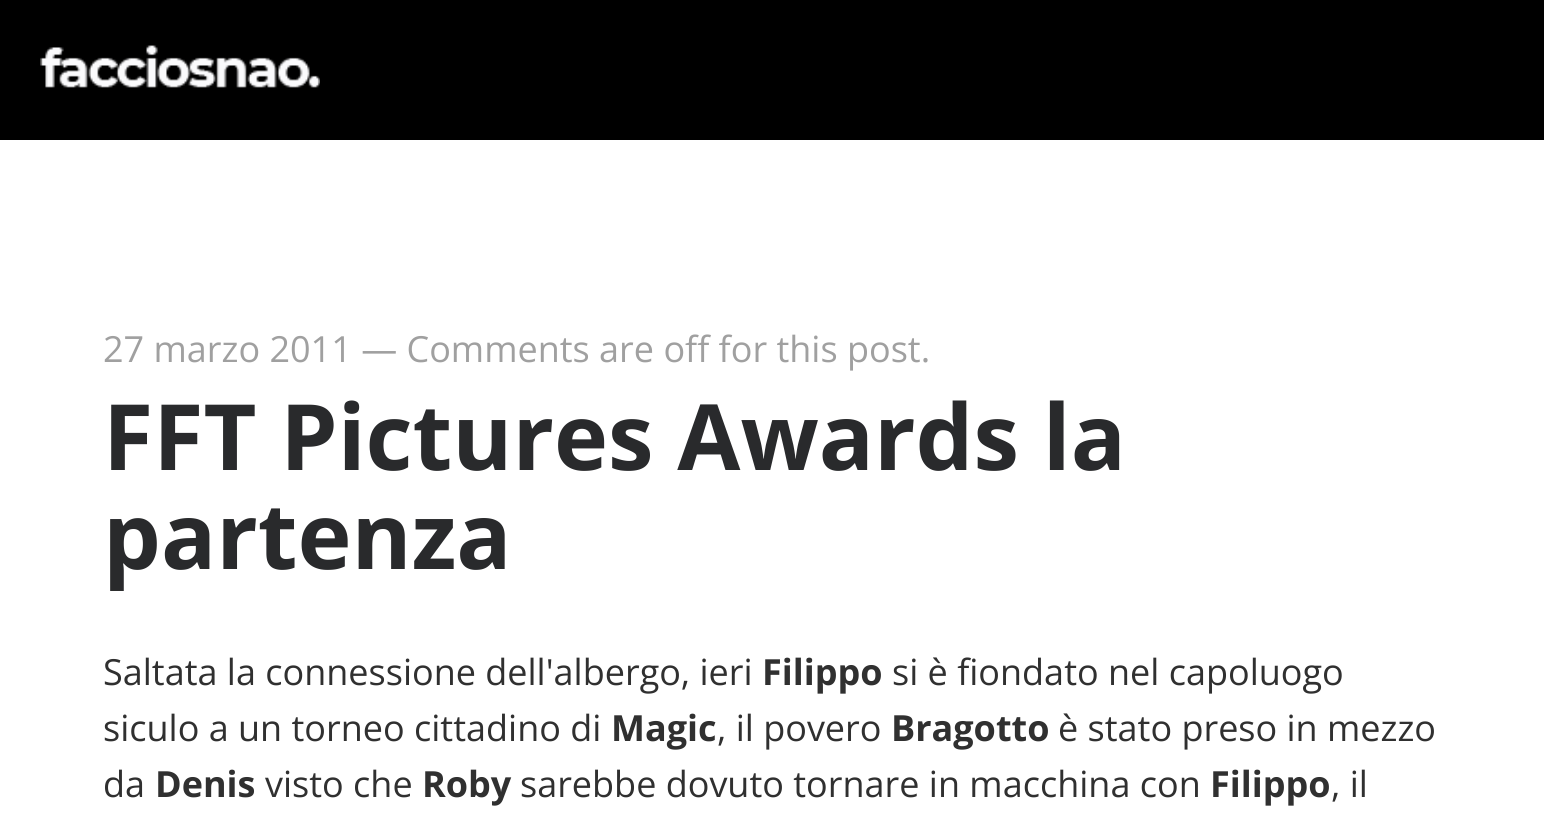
#include <cairo/cairo.h>
#include <math.h>
#include <stddef.h>

static cairo_t *cr;

static void rgb(unsigned color)
{
	cairo_set_source_rgb(cr, (color >> 16) / 255.0, (color >> 8 & 255) / 255.0, (color & 255) / 255.0);
}

static void image(const char *path, double x, double y, double w, double h)
{
	cairo_surface_t *image = cairo_image_surface_create_from_png(path);
	cairo_save(cr);
	cairo_set_source_surface(cr, image, x, y);
	cairo_rectangle(cr, x, y, w, h);
	cairo_fill(cr);
	cairo_restore(cr);
	cairo_surface_destroy(image);
}

int main(void) {
	cairo_surface_t *surface = cairo_image_surface_create(CAIRO_FORMAT_RGB24, 1544, 836);
	cr = cairo_create(surface);
	cairo_font_options_t *options = cairo_font_options_create();
	cairo_font_options_set_hint_metrics(options, CAIRO_HINT_METRICS_OFF);
	cairo_font_options_set_hint_style(options, CAIRO_HINT_STYLE_NONE);
	cairo_set_font_options(cr, options);
	cairo_set_miter_limit(cr, 4);
	rgb(0xffffff);
	cairo_paint(cr);
	rgb(0x000000);
	cairo_rectangle(cr, 0, 0, 1544, 140);
	cairo_fill(cr);
	image("img/1.png", 40, 45, 280, 43);
	cairo_select_font_face(cr, "Open Sans", CAIRO_FONT_SLANT_NORMAL, CAIRO_FONT_WEIGHT_NORMAL);
	cairo_set_font_size(cr, 36);
	rgb(0xa0a0a0);
	cairo_move_to(cr, 103, 362);
	cairo_show_text(cr, "27 marzo 2011 — Comments are off for this post.");
	cairo_select_font_face(cr, "Open Sans", CAIRO_FONT_SLANT_NORMAL, CAIRO_FONT_WEIGHT_BOLD);
	cairo_set_font_size(cr, 91.5);
	rgb(0x292a2c);
	cairo_move_to(cr, 103, 470);
	cairo_show_text(cr, "FFT Pictures Awards la");
	cairo_move_to(cr, 103, 569);
	cairo_show_text(cr, "partenza");
	cairo_select_font_face(cr, "Open Sans", CAIRO_FONT_SLANT_NORMAL, CAIRO_FONT_WEIGHT_NORMAL);
	cairo_set_font_size(cr, 36);
	rgb(0x303030);
	cairo_move_to(cr, 103, 685);
	cairo_show_text(cr, "Saltata la connessione dell'albergo, ieri");
	cairo_select_font_face(cr, "Open Sans", CAIRO_FONT_SLANT_NORMAL, CAIRO_FONT_WEIGHT_BOLD);
	cairo_move_to(cr, 762, 685);
	cairo_show_text(cr, "Filippo");
	cairo_select_font_face(cr, "Open Sans", CAIRO_FONT_SLANT_NORMAL, CAIRO_FONT_WEIGHT_NORMAL);
	cairo_move_to(cr, 892, 685);
	cairo_show_text(cr, "si è fiondato nel capoluogo");
	cairo_move_to(cr, 103, 741);
	cairo_show_text(cr, "siculo a un torneo cittadino di");
	cairo_select_font_face(cr, "Open Sans", CAIRO_FONT_SLANT_NORMAL, CAIRO_FONT_WEIGHT_BOLD);
	cairo_move_to(cr, 611, 741);
	cairo_show_text(cr, "Magic");
	cairo_select_font_face(cr, "Open Sans", CAIRO_FONT_SLANT_NORMAL, CAIRO_FONT_WEIGHT_NORMAL);
	cairo_move_to(cr, 717, 741);
	cairo_show_text(cr, ", il povero");
	cairo_select_font_face(cr, "Open Sans", CAIRO_FONT_SLANT_NORMAL, CAIRO_FONT_WEIGHT_BOLD);
	cairo_move_to(cr, 891, 741);
	cairo_show_text(cr, "Bragotto");
	cairo_select_font_face(cr, "Open Sans", CAIRO_FONT_SLANT_NORMAL, CAIRO_FONT_WEIGHT_NORMAL);
	cairo_move_to(cr, 1058, 741);
	cairo_show_text(cr, "è stato preso in mezzo");
	cairo_move_to(cr, 103, 797);
	cairo_show_text(cr, "da");
	cairo_select_font_face(cr, "Open Sans", CAIRO_FONT_SLANT_NORMAL, CAIRO_FONT_WEIGHT_BOLD);
	cairo_move_to(cr, 155, 797);
	cairo_show_text(cr, "Denis");
	cairo_select_font_face(cr, "Open Sans", CAIRO_FONT_SLANT_NORMAL, CAIRO_FONT_WEIGHT_NORMAL);
	cairo_move_to(cr, 265, 797);
	cairo_show_text(cr, "visto che");
	cairo_select_font_face(cr, "Open Sans", CAIRO_FONT_SLANT_NORMAL, CAIRO_FONT_WEIGHT_BOLD);
	cairo_move_to(cr, 422, 797);
	cairo_show_text(cr, "Roby");
	cairo_select_font_face(cr, "Open Sans", CAIRO_FONT_SLANT_NORMAL, CAIRO_FONT_WEIGHT_NORMAL);
	cairo_move_to(cr, 520, 797);
	cairo_show_text(cr, "sarebbe dovuto tornare in macchina con");
	cairo_select_font_face(cr, "Open Sans", CAIRO_FONT_SLANT_NORMAL, CAIRO_FONT_WEIGHT_BOLD);
	cairo_move_to(cr, 1210, 797);
	cairo_show_text(cr, "Filippo");
	cairo_select_font_face(cr, "Open Sans", CAIRO_FONT_SLANT_NORMAL, CAIRO_FONT_WEIGHT_NORMAL);
	cairo_move_to(cr, 1331, 797);
	cairo_show_text(cr, ", il");
	cairo_surface_write_to_png(surface, "page.png");
	cairo_font_options_destroy(options);
	cairo_destroy(cr);
	cairo_surface_destroy(surface);
	return 0;
}
